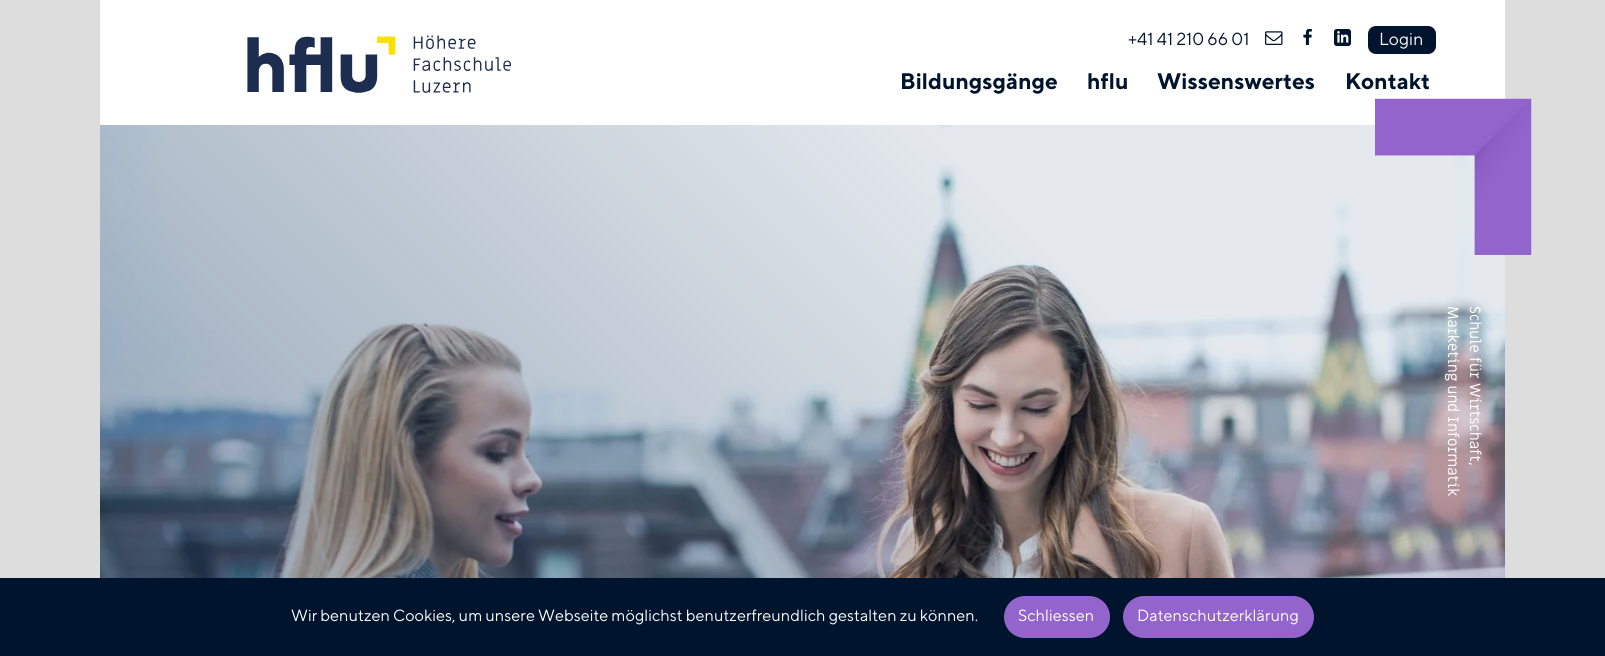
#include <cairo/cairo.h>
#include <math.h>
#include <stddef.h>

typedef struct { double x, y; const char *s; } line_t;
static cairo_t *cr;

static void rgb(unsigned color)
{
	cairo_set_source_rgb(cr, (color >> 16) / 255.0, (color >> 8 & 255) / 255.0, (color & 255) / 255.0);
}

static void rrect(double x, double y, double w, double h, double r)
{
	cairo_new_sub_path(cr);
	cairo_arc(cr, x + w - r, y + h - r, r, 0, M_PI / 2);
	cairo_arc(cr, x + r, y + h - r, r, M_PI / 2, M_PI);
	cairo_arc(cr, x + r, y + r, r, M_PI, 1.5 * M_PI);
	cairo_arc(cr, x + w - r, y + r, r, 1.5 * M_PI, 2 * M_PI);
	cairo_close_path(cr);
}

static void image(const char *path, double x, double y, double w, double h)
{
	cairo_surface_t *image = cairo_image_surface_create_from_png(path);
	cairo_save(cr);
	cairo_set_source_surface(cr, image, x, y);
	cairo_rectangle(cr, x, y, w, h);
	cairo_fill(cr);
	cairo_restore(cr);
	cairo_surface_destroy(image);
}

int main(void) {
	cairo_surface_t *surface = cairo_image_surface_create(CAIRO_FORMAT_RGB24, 1605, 656);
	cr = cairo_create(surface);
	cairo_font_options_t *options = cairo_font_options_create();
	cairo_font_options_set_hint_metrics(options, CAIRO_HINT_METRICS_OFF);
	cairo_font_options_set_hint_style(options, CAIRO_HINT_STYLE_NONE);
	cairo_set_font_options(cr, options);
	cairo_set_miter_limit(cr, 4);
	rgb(0xdddddd);
	cairo_paint(cr);
	rgb(0xffffff);
	cairo_rectangle(cr, 100, 0, 1405, 125);
	cairo_fill(cr);
	image("img/1.png", 1265, 31, 18, 14);
	image("img/2.png", 1303, 29, 9, 16);
	image("img/3.png", 1334, 29, 17, 17);
	rgb(0x00142d);
	rrect(1368, 26, 68, 28, 8);
	cairo_fill(cr);
	image("img/4.png", 247, 35, 264, 58);
	image("img/6.png", 100, 125, 1405, 453);
	image("img/5.png", 1375, 98, 157, 157);
	cairo_rectangle(cr, 0, 578, 1605, 78);
	cairo_fill(cr);
	rgb(0x9464cd);
	rrect(1004, 596, 106, 42, 21);
	cairo_fill(cr);
	rrect(1123, 596, 191, 42, 21);
	cairo_fill(cr);
	cairo_select_font_face(cr, "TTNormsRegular", CAIRO_FONT_SLANT_NORMAL, CAIRO_FONT_WEIGHT_NORMAL);
	cairo_set_font_size(cr, 17.5);
	rgb(0x00142d);
	cairo_move_to(cr, 1128, 45);
	cairo_show_text(cr, "+41 41 210 66 01");
	rgb(0xffffff);
	cairo_move_to(cr, 1379, 45);
	cairo_show_text(cr, "Login");
	cairo_select_font_face(cr, "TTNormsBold", CAIRO_FONT_SLANT_NORMAL, CAIRO_FONT_WEIGHT_NORMAL);
	cairo_set_font_size(cr, 22.5);
	rgb(0x00142d);
	{
		static const line_t items[] = {
			{900, 89, "Bildungsgänge"},
			{1087, 89, "hflu"},
			{1157, 89, "Wissenswertes"},
			{1345, 89, "Kontakt"},
		};
		for (size_t i = 0; i < sizeof items / sizeof *items; i++) {
			cairo_move_to(cr, items[i].x, items[i].y);
			cairo_show_text(cr, items[i].s);
		}
	}
	cairo_select_font_face(cr, "Miriam Libre", CAIRO_FONT_SLANT_NORMAL, CAIRO_FONT_WEIGHT_NORMAL);
	cairo_set_font_size(cr, 15);
	rgb(0xffffff);
	cairo_save(cr);
	cairo_translate(cr, 1448, 306);
	cairo_rotate(cr, 90 * M_PI / 180);
	cairo_move_to(cr, 0, 0);
	cairo_show_text(cr, "Marketing und Informatik");
	cairo_restore(cr);
	cairo_save(cr);
	cairo_translate(cr, 1470, 306);
	cairo_rotate(cr, 90 * M_PI / 180);
	cairo_move_to(cr, 0, 0);
	cairo_show_text(cr, "Schule für Wirtschaft,");
	cairo_restore(cr);
	cairo_select_font_face(cr, "TTNormsRegular", CAIRO_FONT_SLANT_NORMAL, CAIRO_FONT_WEIGHT_NORMAL);
	cairo_set_font_size(cr, 16.25);
	{
		static const line_t items[] = {
			{291, 621, "Wir benutzen Cookies, um unsere Webseite möglichst benutzerfreundlich gestalten zu können."},
			{1018, 621, "Schliessen"},
			{1137, 621, "Datenschutzerklärung"},
		};
		for (size_t i = 0; i < sizeof items / sizeof *items; i++) {
			cairo_move_to(cr, items[i].x, items[i].y);
			cairo_show_text(cr, items[i].s);
		}
	}
	cairo_surface_write_to_png(surface, "page.png");
	cairo_font_options_destroy(options);
	cairo_destroy(cr);
	cairo_surface_destroy(surface);
	return 0;
}
